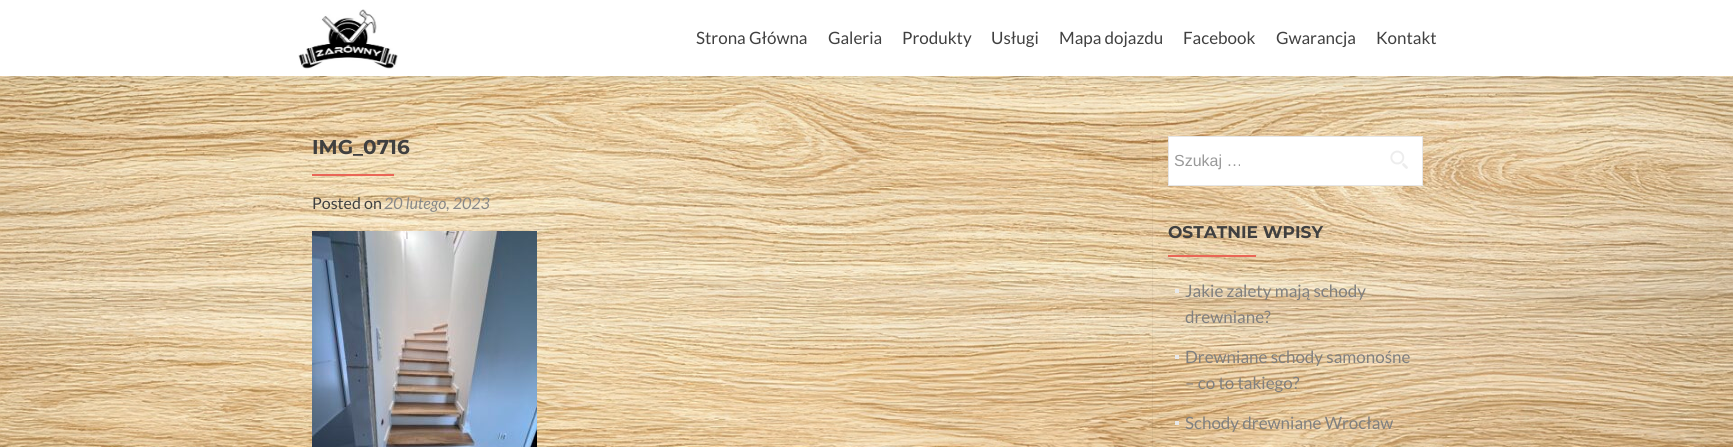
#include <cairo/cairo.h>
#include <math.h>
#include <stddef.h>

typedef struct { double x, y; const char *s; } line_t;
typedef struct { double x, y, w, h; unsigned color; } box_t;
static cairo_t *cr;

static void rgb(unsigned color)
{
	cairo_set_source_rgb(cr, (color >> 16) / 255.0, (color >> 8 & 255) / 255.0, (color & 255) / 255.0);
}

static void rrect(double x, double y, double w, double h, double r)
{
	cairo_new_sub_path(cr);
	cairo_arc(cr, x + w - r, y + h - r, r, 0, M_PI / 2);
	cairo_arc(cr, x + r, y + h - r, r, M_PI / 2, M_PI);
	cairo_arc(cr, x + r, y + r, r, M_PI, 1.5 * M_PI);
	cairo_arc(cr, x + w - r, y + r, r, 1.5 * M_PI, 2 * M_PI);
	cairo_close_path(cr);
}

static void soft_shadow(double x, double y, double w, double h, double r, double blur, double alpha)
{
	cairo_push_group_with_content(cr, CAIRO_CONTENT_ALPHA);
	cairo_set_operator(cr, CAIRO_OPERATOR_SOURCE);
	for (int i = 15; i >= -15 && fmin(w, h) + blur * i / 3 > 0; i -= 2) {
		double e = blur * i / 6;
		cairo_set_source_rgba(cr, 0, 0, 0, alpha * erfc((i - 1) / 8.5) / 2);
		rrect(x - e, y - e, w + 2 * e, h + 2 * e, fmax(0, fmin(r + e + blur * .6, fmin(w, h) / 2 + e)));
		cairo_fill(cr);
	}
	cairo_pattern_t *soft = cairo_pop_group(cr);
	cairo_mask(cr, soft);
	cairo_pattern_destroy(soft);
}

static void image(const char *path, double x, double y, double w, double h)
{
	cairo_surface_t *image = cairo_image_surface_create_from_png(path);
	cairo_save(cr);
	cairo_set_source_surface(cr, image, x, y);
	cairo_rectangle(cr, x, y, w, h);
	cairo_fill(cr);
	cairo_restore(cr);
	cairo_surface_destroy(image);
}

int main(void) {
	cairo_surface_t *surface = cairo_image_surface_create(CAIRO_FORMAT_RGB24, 1733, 447);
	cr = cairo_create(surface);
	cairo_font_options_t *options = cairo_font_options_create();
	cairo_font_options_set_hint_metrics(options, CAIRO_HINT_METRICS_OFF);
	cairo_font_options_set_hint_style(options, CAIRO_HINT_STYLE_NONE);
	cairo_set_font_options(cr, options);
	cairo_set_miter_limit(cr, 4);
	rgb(0xffffff);
	cairo_paint(cr);
	image("img/2.png", 0, 76, 1733, 371);
	cairo_save(cr);
	cairo_rectangle(cr, 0, 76, 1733, 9);
	cairo_clip(cr);
	rgb(0x323232);
	soft_shadow(0, 5, 1733, 76, 0, 5.5, 0.08);
	cairo_restore(cr);
	image("img/1.png", 298, 9, 100, 60);
	rgb(0xe96656);
	cairo_rectangle(cr, 312, 174, 82, 2);
	cairo_fill(cr);
	image("img/3.png", 312, 231, 225, 216);
	cairo_set_source_rgba(cr, 0, 0, 0, 0.05);
	cairo_rectangle(cr, 1152, 136, 1, 311);
	cairo_fill(cr);
	rgb(0xffffff);
	cairo_rectangle(cr, 1168.5, 136.5, 254, 49);
	cairo_fill_preserve(cr);
	rgb(0xe6e6e6);
	cairo_set_line_width(cr, 1);
	cairo_stroke(cr);
	image("img/4.png", 1390, 150, 18, 19);
	{
		static const box_t items[] = {
			{1168, 255, 88, 2, 0xe96656},
			{1175, 289, 4, 4, 0xe9e9e9},
			{1175, 355, 4, 4, 0xe9e9e9},
			{1175, 421, 4, 4, 0xe9e9e9},
		};
		for (size_t i = 0; i < sizeof items / sizeof *items; i++) {
			rgb(items[i].color);
			cairo_rectangle(cr, items[i].x, items[i].y, items[i].w, items[i].h);
			cairo_fill(cr);
		}
	}
	cairo_select_font_face(cr, "Lato", CAIRO_FONT_SLANT_NORMAL, CAIRO_FONT_WEIGHT_NORMAL);
	cairo_set_font_size(cr, 17);
	rgb(0x404040);
	{
		static const line_t items[] = {
			{696, 44, "Strona Główna"},
			{828, 44, "Galeria"},
			{902, 44, "Produkty"},
			{991, 44, "Usługi"},
			{1059, 44, "Mapa dojazdu"},
			{1183, 44, "Facebook"},
			{1276, 44, "Gwarancja"},
			{1376, 44, "Kontakt"},
		};
		for (size_t i = 0; i < sizeof items / sizeof *items; i++) {
			cairo_move_to(cr, items[i].x, items[i].y);
			cairo_show_text(cr, items[i].s);
		}
	}
	cairo_select_font_face(cr, "Montserrat", CAIRO_FONT_SLANT_NORMAL, CAIRO_FONT_WEIGHT_BOLD);
	cairo_set_font_size(cr, 20);
	cairo_move_to(cr, 312, 154);
	cairo_show_text(cr, "IMG_0716");
	cairo_select_font_face(cr, "Lato", CAIRO_FONT_SLANT_NORMAL, CAIRO_FONT_WEIGHT_NORMAL);
	cairo_set_font_size(cr, 16);
	cairo_move_to(cr, 312, 209);
	cairo_show_text(cr, "Posted on");
	cairo_select_font_face(cr, "Lato", CAIRO_FONT_SLANT_ITALIC, CAIRO_FONT_WEIGHT_NORMAL);
	rgb(0x888888);
	cairo_move_to(cr, 384, 209);
	cairo_show_text(cr, "20 lutego, 2023");
	cairo_select_font_face(cr, "Liberation Sans", CAIRO_FONT_SLANT_NORMAL, CAIRO_FONT_WEIGHT_NORMAL);
	rgb(0x999999);
	cairo_move_to(cr, 1174, 166);
	cairo_show_text(cr, "Szukaj …");
	cairo_select_font_face(cr, "Montserrat", CAIRO_FONT_SLANT_NORMAL, CAIRO_FONT_WEIGHT_BOLD);
	cairo_set_font_size(cr, 17);
	rgb(0x404040);
	cairo_move_to(cr, 1168, 238);
	cairo_show_text(cr, "OSTATNIE WPISY");
	cairo_select_font_face(cr, "Lato", CAIRO_FONT_SLANT_NORMAL, CAIRO_FONT_WEIGHT_NORMAL);
	rgb(0x808080);
	{
		static const line_t items[] = {
			{1185, 297, "Jakie zalety mają schody"},
			{1185, 323, "drewniane?"},
			{1185, 363, "Drewniane schody samonośne"},
			{1185, 389, "– co to takiego?"},
			{1185, 429, "Schody drewniane Wrocław"},
		};
		for (size_t i = 0; i < sizeof items / sizeof *items; i++) {
			cairo_move_to(cr, items[i].x, items[i].y);
			cairo_show_text(cr, items[i].s);
		}
	}
	cairo_surface_write_to_png(surface, "page.png");
	cairo_font_options_destroy(options);
	cairo_destroy(cr);
	cairo_surface_destroy(surface);
	return 0;
}
